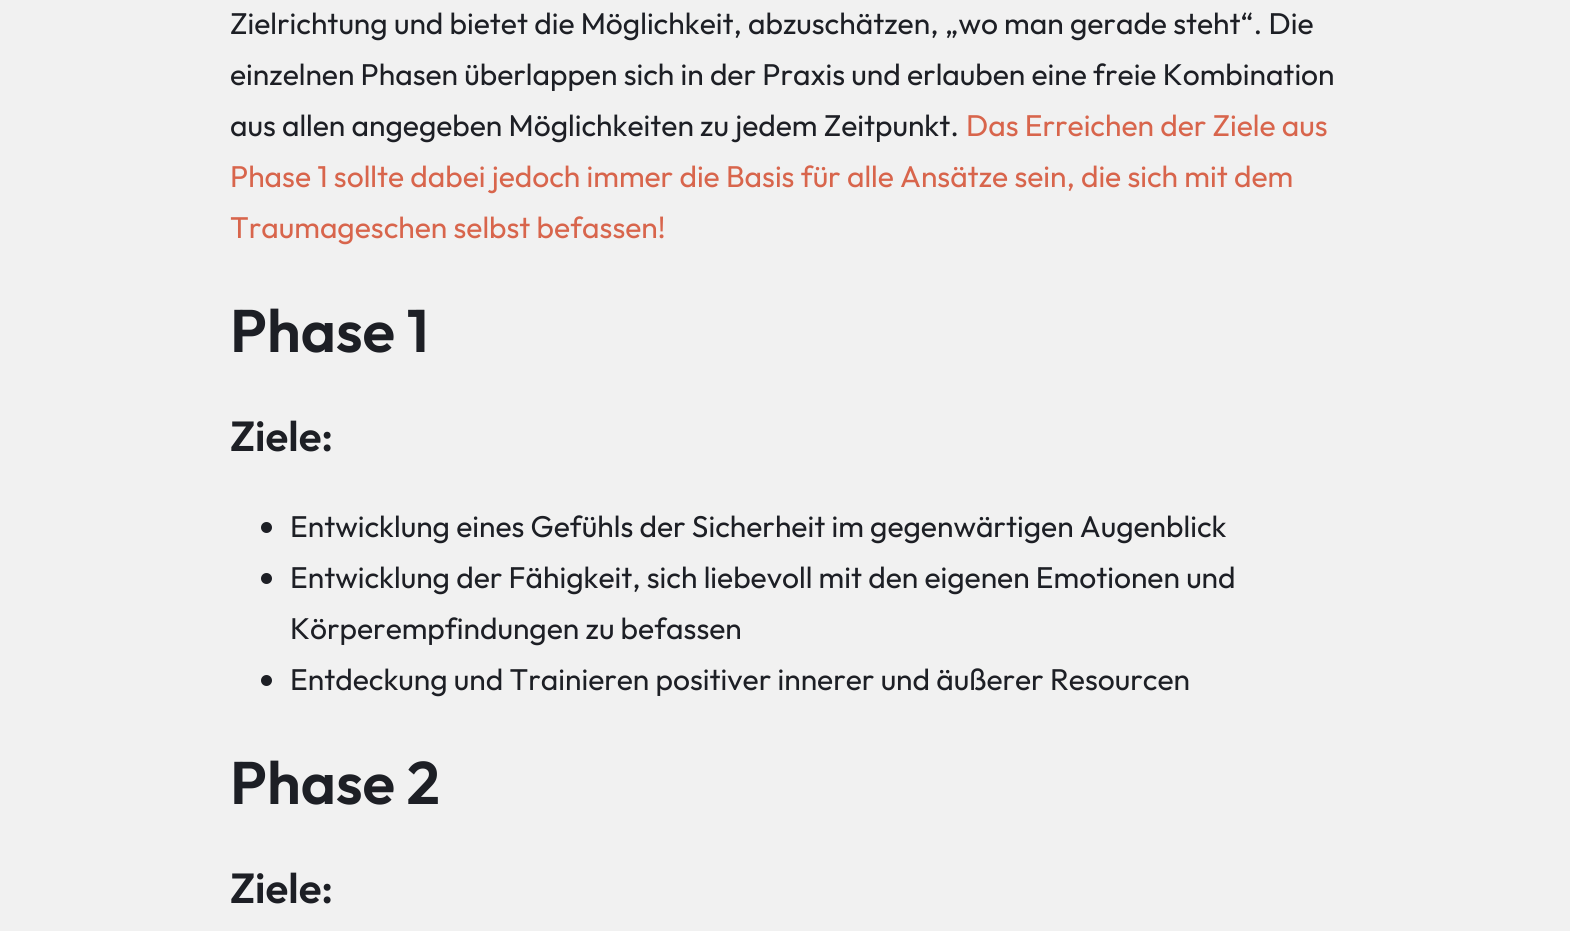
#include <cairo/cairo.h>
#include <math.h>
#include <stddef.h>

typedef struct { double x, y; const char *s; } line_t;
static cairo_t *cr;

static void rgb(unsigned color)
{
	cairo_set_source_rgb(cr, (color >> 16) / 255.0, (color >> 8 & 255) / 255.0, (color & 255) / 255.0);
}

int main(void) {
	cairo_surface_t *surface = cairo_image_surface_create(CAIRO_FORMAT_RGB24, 1570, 931);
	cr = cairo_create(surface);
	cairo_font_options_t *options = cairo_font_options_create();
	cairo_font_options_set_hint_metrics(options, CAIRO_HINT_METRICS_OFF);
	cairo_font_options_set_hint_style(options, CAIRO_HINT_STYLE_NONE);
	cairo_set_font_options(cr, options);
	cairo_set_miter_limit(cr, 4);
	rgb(0xf1f1f1);
	cairo_paint(cr);
	rgb(0x1d1f25);
	cairo_arc(cr, 266.5, 527.5, 5.5, 0, 2 * M_PI);
	cairo_fill(cr);
	cairo_arc(cr, 266.5, 578.5, 5.5, 0, 2 * M_PI);
	cairo_fill(cr);
	cairo_arc(cr, 266.5, 680.5, 5.5, 0, 2 * M_PI);
	cairo_fill(cr);
	cairo_select_font_face(cr, "Outfit", CAIRO_FONT_SLANT_NORMAL, CAIRO_FONT_WEIGHT_NORMAL);
	cairo_set_font_size(cr, 30);
	{
		static const line_t items[] = {
			{230, 34, "Zielrichtung und bietet die Möglichkeit, abzuschätzen, „wo man gerade steht“. Die"},
			{230, 85, "einzelnen Phasen überlappen sich in der Praxis und erlauben eine freie Kombination"},
			{230, 136, "aus allen angegeben Möglichkeiten zu jedem Zeitpunkt."},
		};
		for (size_t i = 0; i < sizeof items / sizeof *items; i++) {
			cairo_move_to(cr, items[i].x, items[i].y);
			cairo_show_text(cr, items[i].s);
		}
	}
	rgb(0xd8654c);
	{
		static const line_t items[] = {
			{966, 136, "Das Erreichen der Ziele aus"},
			{230, 187, "Phase 1 sollte dabei jedoch immer die Basis für alle Ansätze sein, die sich mit dem"},
			{230, 238, "Traumageschen selbst befassen!"},
		};
		for (size_t i = 0; i < sizeof items / sizeof *items; i++) {
			cairo_move_to(cr, items[i].x, items[i].y);
			cairo_show_text(cr, items[i].s);
		}
	}
	cairo_select_font_face(cr, "Outfit SemiBold", CAIRO_FONT_SLANT_NORMAL, CAIRO_FONT_WEIGHT_NORMAL);
	cairo_set_font_size(cr, 60);
	rgb(0x1d1f25);
	cairo_move_to(cr, 230, 352);
	cairo_show_text(cr, "Phase 1");
	cairo_set_font_size(cr, 42);
	cairo_move_to(cr, 230, 451);
	cairo_show_text(cr, "Ziele:");
	cairo_select_font_face(cr, "Outfit", CAIRO_FONT_SLANT_NORMAL, CAIRO_FONT_WEIGHT_NORMAL);
	cairo_set_font_size(cr, 30);
	{
		static const line_t items[] = {
			{290, 537, "Entwicklung eines Gefühls der Sicherheit im gegenwärtigen Augenblick"},
			{290, 588, "Entwicklung der Fähigkeit, sich liebevoll mit den eigenen Emotionen und"},
			{290, 639, "Körperempfindungen zu befassen"},
			{290, 690, "Entdeckung und Trainieren positiver innerer und äußerer Resourcen"},
		};
		for (size_t i = 0; i < sizeof items / sizeof *items; i++) {
			cairo_move_to(cr, items[i].x, items[i].y);
			cairo_show_text(cr, items[i].s);
		}
	}
	cairo_select_font_face(cr, "Outfit SemiBold", CAIRO_FONT_SLANT_NORMAL, CAIRO_FONT_WEIGHT_NORMAL);
	cairo_set_font_size(cr, 60);
	cairo_move_to(cr, 230, 804);
	cairo_show_text(cr, "Phase 2");
	cairo_set_font_size(cr, 42);
	cairo_move_to(cr, 230, 903);
	cairo_show_text(cr, "Ziele:");
	cairo_surface_write_to_png(surface, "page.png");
	cairo_font_options_destroy(options);
	cairo_destroy(cr);
	cairo_surface_destroy(surface);
	return 0;
}
